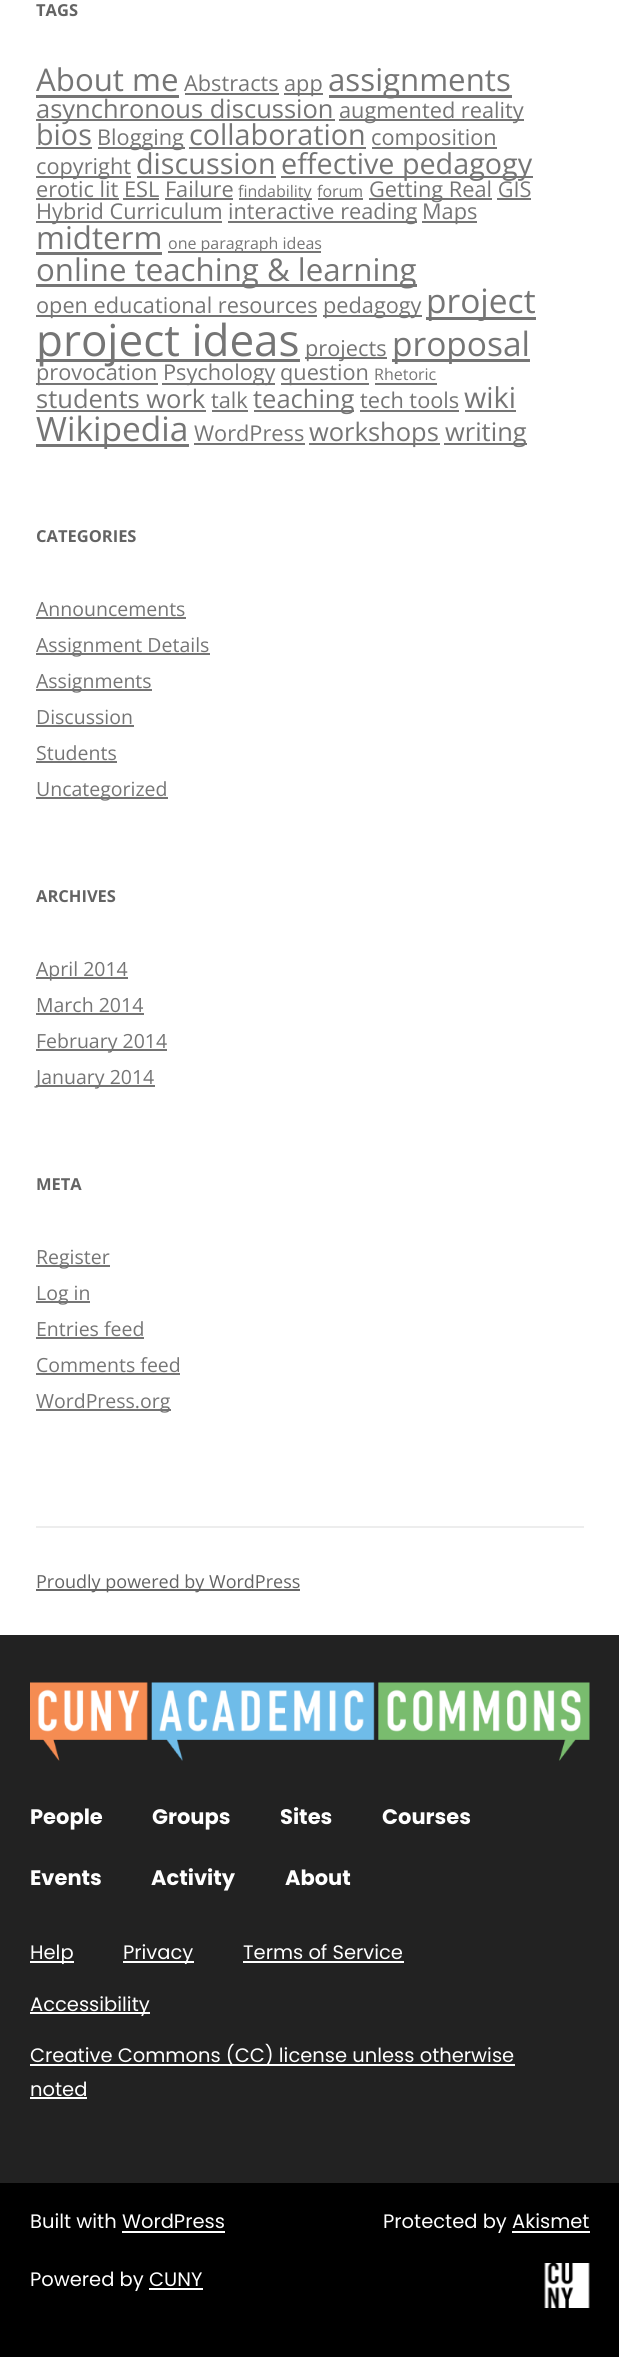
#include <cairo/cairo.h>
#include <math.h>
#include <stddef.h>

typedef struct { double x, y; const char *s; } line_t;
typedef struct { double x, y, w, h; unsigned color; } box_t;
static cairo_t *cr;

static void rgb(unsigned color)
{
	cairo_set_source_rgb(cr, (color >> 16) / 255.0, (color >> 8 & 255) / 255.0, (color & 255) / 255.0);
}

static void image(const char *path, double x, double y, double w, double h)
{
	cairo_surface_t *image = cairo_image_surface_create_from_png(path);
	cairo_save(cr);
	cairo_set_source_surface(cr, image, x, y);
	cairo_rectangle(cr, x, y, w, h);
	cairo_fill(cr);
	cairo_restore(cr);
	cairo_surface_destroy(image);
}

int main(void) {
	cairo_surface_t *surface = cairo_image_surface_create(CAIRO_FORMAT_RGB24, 619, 2357);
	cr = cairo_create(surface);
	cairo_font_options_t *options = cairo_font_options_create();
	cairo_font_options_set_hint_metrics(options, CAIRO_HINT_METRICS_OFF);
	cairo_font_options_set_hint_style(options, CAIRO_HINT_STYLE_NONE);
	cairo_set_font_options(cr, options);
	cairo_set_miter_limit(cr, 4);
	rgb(0xffffff);
	cairo_paint(cr);
	{
		static const box_t items[] = {
			{36, 95, 143, 3, 0x757575},
			{185, 93, 94, 2, 0x757575},
			{284, 93, 39, 2, 0x757575},
			{329, 95, 183, 3, 0x757575},
			{36, 119, 299, 2, 0x757575},
			{339, 119, 185, 2, 0x757575},
			{36, 147, 56, 2, 0x757575},
			{98, 147, 87, 2, 0x757575},
			{189, 147, 177, 2, 0x757575},
			{372, 147, 125, 2, 0x757575},
			{36, 176, 95, 2, 0x757575},
			{137, 176, 139, 2, 0x757575},
			{281, 176, 252, 2, 0x757575},
			{36, 198, 83, 2, 0x757575},
			{239, 198, 73, 2, 0x757575},
			{318, 198, 45, 2, 0x757575},
			{369, 198, 123, 2, 0x757575},
			{123, 198, 36, 2, 0x757575},
			{165, 198, 68, 2, 0x757575},
			{497, 198, 34, 2, 0x757575},
			{36, 221, 186, 2, 0x757575},
			{228, 221, 189, 2, 0x757575},
			{422, 221, 55, 2, 0x757575},
			{36, 252, 126, 3, 0x757575},
			{168, 251, 153, 2, 0x757575},
			{36, 284, 381, 3, 0x757575},
			{36, 315, 281, 2, 0x757575},
			{323, 315, 99, 2, 0x757575},
			{426, 317, 110, 3, 0x757575},
			{36, 359, 264, 3, 0x757575},
			{305, 357, 82, 2, 0x757575},
			{392, 359, 138, 3, 0x757575},
			{36, 383, 122, 2, 0x757575},
			{162, 383, 113, 2, 0x757575},
			{281, 383, 88, 2, 0x757575},
			{375, 383, 62, 2, 0x757575},
			{36, 410, 170, 2, 0x757575},
			{212, 410, 36, 2, 0x757575},
			{254, 410, 100, 2, 0x757575},
			{360, 410, 99, 2, 0x757575},
			{465, 410, 51, 2, 0x757575},
			{36, 444, 153, 3, 0x757575},
			{194, 443, 111, 2, 0x757575},
			{309, 443, 131, 2, 0x757575},
			{444, 443, 83, 2, 0x757575},
			{36, 617, 150, 2, 0x757575},
			{36, 653, 174, 2, 0x757575},
			{36, 689, 116, 2, 0x757575},
			{36, 725, 98, 2, 0x757575},
			{36, 761, 81, 2, 0x757575},
			{36, 797, 132, 2, 0x757575},
			{36, 977, 92, 2, 0x757575},
			{36, 1013, 108, 2, 0x757575},
			{36, 1049, 131, 2, 0x757575},
			{36, 1085, 119, 2, 0x757575},
			{36, 1265, 74, 2, 0x757575},
			{36, 1301, 54, 2, 0x757575},
			{36, 1337, 108, 2, 0x757575},
			{36, 1373, 144, 2, 0x757575},
			{36, 1409, 135, 2, 0x757575},
			{36, 1526, 548, 2, 0xededed},
			{36, 1589, 264, 2, 0x686868},
			{0, 1635, 619, 548, 0x222222},
		};
		for (size_t i = 0; i < sizeof items / sizeof *items; i++) {
			rgb(items[i].color);
			cairo_rectangle(cr, items[i].x, items[i].y, items[i].w, items[i].h);
			cairo_fill(cr);
		}
	}
	image("img/1.png", 30, 1682, 560, 79);
	{
		static const box_t items[] = {
			{30, 1961, 44, 2, 0xffffff},
			{123, 1961, 71, 2, 0xffffff},
			{243, 1961, 161, 2, 0xffffff},
			{30, 2012, 120, 2, 0xffffff},
			{30, 2064, 485, 2, 0xffffff},
			{30, 2097, 57, 2, 0xffffff},
			{0, 2183, 619, 174, 0x000000},
			{122, 2231, 103, 2, 0xffffff},
			{512, 2231, 78, 2, 0xffffff},
			{149, 2288, 54, 2, 0xffffff},
		};
		for (size_t i = 0; i < sizeof items / sizeof *items; i++) {
			rgb(items[i].color);
			cairo_rectangle(cr, items[i].x, items[i].y, items[i].w, items[i].h);
			cairo_fill(cr);
		}
	}
	image("img/2.png", 544, 2263, 46, 45);
	cairo_select_font_face(cr, "Open Sans", CAIRO_FONT_SLANT_NORMAL, CAIRO_FONT_WEIGHT_BOLD);
	cairo_set_font_size(cr, 16.5);
	rgb(0x636363);
	cairo_move_to(cr, 36, 16);
	cairo_show_text(cr, "TAGS");
	cairo_select_font_face(cr, "Open Sans", CAIRO_FONT_SLANT_NORMAL, CAIRO_FONT_WEIGHT_NORMAL);
	cairo_set_font_size(cr, 31.25);
	rgb(0x757575);
	cairo_move_to(cr, 36, 91);
	cairo_show_text(cr, "About me");
	cairo_set_font_size(cr, 21.75);
	cairo_move_to(cr, 184, 91);
	cairo_show_text(cr, "Abstracts");
	cairo_move_to(cr, 284, 91);
	cairo_show_text(cr, "app");
	cairo_set_font_size(cr, 31.25);
	cairo_move_to(cr, 328, 91);
	cairo_show_text(cr, "assignments");
	cairo_set_font_size(cr, 25.5);
	cairo_move_to(cr, 36, 118);
	cairo_show_text(cr, "asynchronous discussion");
	cairo_set_font_size(cr, 21.75);
	cairo_move_to(cr, 339, 118);
	cairo_show_text(cr, "augmented reality");
	cairo_set_font_size(cr, 28.75);
	cairo_move_to(cr, 36, 145);
	cairo_show_text(cr, "bios");
	cairo_set_font_size(cr, 21.75);
	cairo_move_to(cr, 97, 145);
	cairo_show_text(cr, "Blogging");
	cairo_set_font_size(cr, 28.75);
	cairo_move_to(cr, 189, 145);
	cairo_show_text(cr, "collaboration");
	cairo_set_font_size(cr, 21.75);
	cairo_move_to(cr, 371, 145);
	cairo_show_text(cr, "composition");
	cairo_move_to(cr, 36, 174);
	cairo_show_text(cr, "copyright");
	cairo_set_font_size(cr, 28.75);
	cairo_move_to(cr, 136, 174);
	cairo_show_text(cr, "discussion");
	cairo_move_to(cr, 281, 174);
	cairo_show_text(cr, "effective pedagogy");
	cairo_set_font_size(cr, 21.75);
	cairo_move_to(cr, 36, 197);
	cairo_show_text(cr, "erotic lit ESL Failure");
	cairo_set_font_size(cr, 16);
	cairo_move_to(cr, 238, 197);
	cairo_show_text(cr, "findability");
	cairo_move_to(cr, 317, 197);
	cairo_show_text(cr, "forum");
	cairo_set_font_size(cr, 21.75);
	{
		static const line_t items[] = {
			{369, 197, "Getting Real GIS"},
			{36, 219, "Hybrid Curriculum"},
			{228, 219, "interactive reading"},
			{422, 219, "Maps"},
		};
		for (size_t i = 0; i < sizeof items / sizeof *items; i++) {
			cairo_move_to(cr, items[i].x, items[i].y);
			cairo_show_text(cr, items[i].s);
		}
	}
	cairo_set_font_size(cr, 31.25);
	cairo_move_to(cr, 36, 249);
	cairo_show_text(cr, "midterm");
	cairo_set_font_size(cr, 16);
	cairo_move_to(cr, 168, 249);
	cairo_show_text(cr, "one paragraph ideas");
	cairo_set_font_size(cr, 31.25);
	cairo_move_to(cr, 36, 281);
	cairo_show_text(cr, "online teaching & learning");
	cairo_set_font_size(cr, 21.75);
	cairo_move_to(cr, 36, 313);
	cairo_show_text(cr, "open educational resources");
	cairo_move_to(cr, 323, 313);
	cairo_show_text(cr, "pedagogy");
	cairo_set_font_size(cr, 33.5);
	cairo_move_to(cr, 426, 313);
	cairo_show_text(cr, "project");
	cairo_set_font_size(cr, 44);
	cairo_move_to(cr, 36, 356);
	cairo_show_text(cr, "project ideas");
	cairo_set_font_size(cr, 21.75);
	cairo_move_to(cr, 305, 356);
	cairo_show_text(cr, "projects");
	cairo_set_font_size(cr, 33.5);
	cairo_move_to(cr, 392, 356);
	cairo_show_text(cr, "proposal");
	cairo_set_font_size(cr, 21.75);
	{
		static const line_t items[] = {
			{36, 380, "provocation"},
			{163, 380, "Psychology"},
			{280, 380, "question"},
		};
		for (size_t i = 0; i < sizeof items / sizeof *items; i++) {
			cairo_move_to(cr, items[i].x, items[i].y);
			cairo_show_text(cr, items[i].s);
		}
	}
	cairo_set_font_size(cr, 16);
	cairo_move_to(cr, 374, 380);
	cairo_show_text(cr, "Rhetoric");
	cairo_set_font_size(cr, 25.5);
	cairo_move_to(cr, 36, 408);
	cairo_show_text(cr, "students work");
	cairo_set_font_size(cr, 21.75);
	cairo_move_to(cr, 211, 408);
	cairo_show_text(cr, "talk");
	cairo_set_font_size(cr, 25.5);
	cairo_move_to(cr, 253, 408);
	cairo_show_text(cr, "teaching");
	cairo_set_font_size(cr, 21.75);
	cairo_move_to(cr, 360, 408);
	cairo_show_text(cr, "tech tools");
	cairo_set_font_size(cr, 28.75);
	cairo_move_to(cr, 464, 408);
	cairo_show_text(cr, "wiki");
	cairo_set_font_size(cr, 33.5);
	cairo_move_to(cr, 36, 441);
	cairo_show_text(cr, "Wikipedia");
	cairo_set_font_size(cr, 21.75);
	cairo_move_to(cr, 194, 441);
	cairo_show_text(cr, "WordPress");
	cairo_set_font_size(cr, 25.5);
	cairo_move_to(cr, 309, 441);
	cairo_show_text(cr, "workshops");
	cairo_move_to(cr, 445, 441);
	cairo_show_text(cr, "writing");
	cairo_select_font_face(cr, "Open Sans", CAIRO_FONT_SLANT_NORMAL, CAIRO_FONT_WEIGHT_BOLD);
	cairo_set_font_size(cr, 16.5);
	rgb(0x636363);
	cairo_move_to(cr, 36, 542);
	cairo_show_text(cr, "CATEGORIES");
	cairo_select_font_face(cr, "Open Sans", CAIRO_FONT_SLANT_NORMAL, CAIRO_FONT_WEIGHT_NORMAL);
	cairo_set_font_size(cr, 19.5);
	rgb(0x757575);
	{
		static const line_t items[] = {
			{36, 616, "Announcements"},
			{36, 652, "Assignment Details"},
			{36, 688, "Assignments"},
			{36, 724, "Discussion"},
			{36, 760, "Students"},
			{36, 796, "Uncategorized"},
		};
		for (size_t i = 0; i < sizeof items / sizeof *items; i++) {
			cairo_move_to(cr, items[i].x, items[i].y);
			cairo_show_text(cr, items[i].s);
		}
	}
	cairo_select_font_face(cr, "Open Sans", CAIRO_FONT_SLANT_NORMAL, CAIRO_FONT_WEIGHT_BOLD);
	cairo_set_font_size(cr, 16.5);
	rgb(0x636363);
	cairo_move_to(cr, 36, 902);
	cairo_show_text(cr, "ARCHIVES");
	cairo_select_font_face(cr, "Open Sans", CAIRO_FONT_SLANT_NORMAL, CAIRO_FONT_WEIGHT_NORMAL);
	cairo_set_font_size(cr, 19.5);
	rgb(0x757575);
	{
		static const line_t items[] = {
			{36, 976, "April 2014"},
			{36, 1012, "March 2014"},
			{36, 1048, "February 2014"},
			{36, 1084, "January 2014"},
		};
		for (size_t i = 0; i < sizeof items / sizeof *items; i++) {
			cairo_move_to(cr, items[i].x, items[i].y);
			cairo_show_text(cr, items[i].s);
		}
	}
	cairo_select_font_face(cr, "Open Sans", CAIRO_FONT_SLANT_NORMAL, CAIRO_FONT_WEIGHT_BOLD);
	cairo_set_font_size(cr, 16.5);
	rgb(0x636363);
	cairo_move_to(cr, 36, 1190);
	cairo_show_text(cr, "META");
	cairo_select_font_face(cr, "Open Sans", CAIRO_FONT_SLANT_NORMAL, CAIRO_FONT_WEIGHT_NORMAL);
	cairo_set_font_size(cr, 19.5);
	rgb(0x757575);
	{
		static const line_t items[] = {
			{36, 1264, "Register"},
			{36, 1300, "Log in"},
			{36, 1336, "Entries feed"},
			{36, 1372, "Comments feed"},
			{36, 1408, "WordPress.org"},
		};
		for (size_t i = 0; i < sizeof items / sizeof *items; i++) {
			cairo_move_to(cr, items[i].x, items[i].y);
			cairo_show_text(cr, items[i].s);
		}
	}
	cairo_set_font_size(cr, 18);
	rgb(0x636363);
	cairo_move_to(cr, 36, 1588);
	cairo_show_text(cr, "Proudly powered by WordPress");
	cairo_select_font_face(cr, "Poppins", CAIRO_FONT_SLANT_NORMAL, CAIRO_FONT_WEIGHT_BOLD);
	cairo_set_font_size(cr, 21);
	rgb(0xffffff);
	{
		static const line_t items[] = {
			{30, 1824, "People"},
			{152, 1824, "Groups"},
			{280, 1824, "Sites"},
			{382, 1824, "Courses"},
			{30, 1885, "Events"},
			{151, 1885, "Activity"},
			{285, 1885, "About"},
		};
		for (size_t i = 0; i < sizeof items / sizeof *items; i++) {
			cairo_move_to(cr, items[i].x, items[i].y);
			cairo_show_text(cr, items[i].s);
		}
	}
	cairo_select_font_face(cr, "Poppins", CAIRO_FONT_SLANT_NORMAL, CAIRO_FONT_WEIGHT_NORMAL);
	cairo_set_font_size(cr, 19.5);
	{
		static const line_t items[] = {
			{30, 1959, "Help"},
			{123, 1959, "Privacy"},
			{243, 1959, "Terms of Service"},
			{30, 2011, "Accessibility"},
			{30, 2062, "Creative Commons (CC) license unless otherwise"},
			{30, 2096, "noted"},
			{30, 2228, "Built with WordPress"},
			{383, 2228, "Protected by Akismet"},
			{30, 2286, "Powered by CUNY"},
		};
		for (size_t i = 0; i < sizeof items / sizeof *items; i++) {
			cairo_move_to(cr, items[i].x, items[i].y);
			cairo_show_text(cr, items[i].s);
		}
	}
	cairo_surface_write_to_png(surface, "page.png");
	cairo_font_options_destroy(options);
	cairo_destroy(cr);
	cairo_surface_destroy(surface);
	return 0;
}
